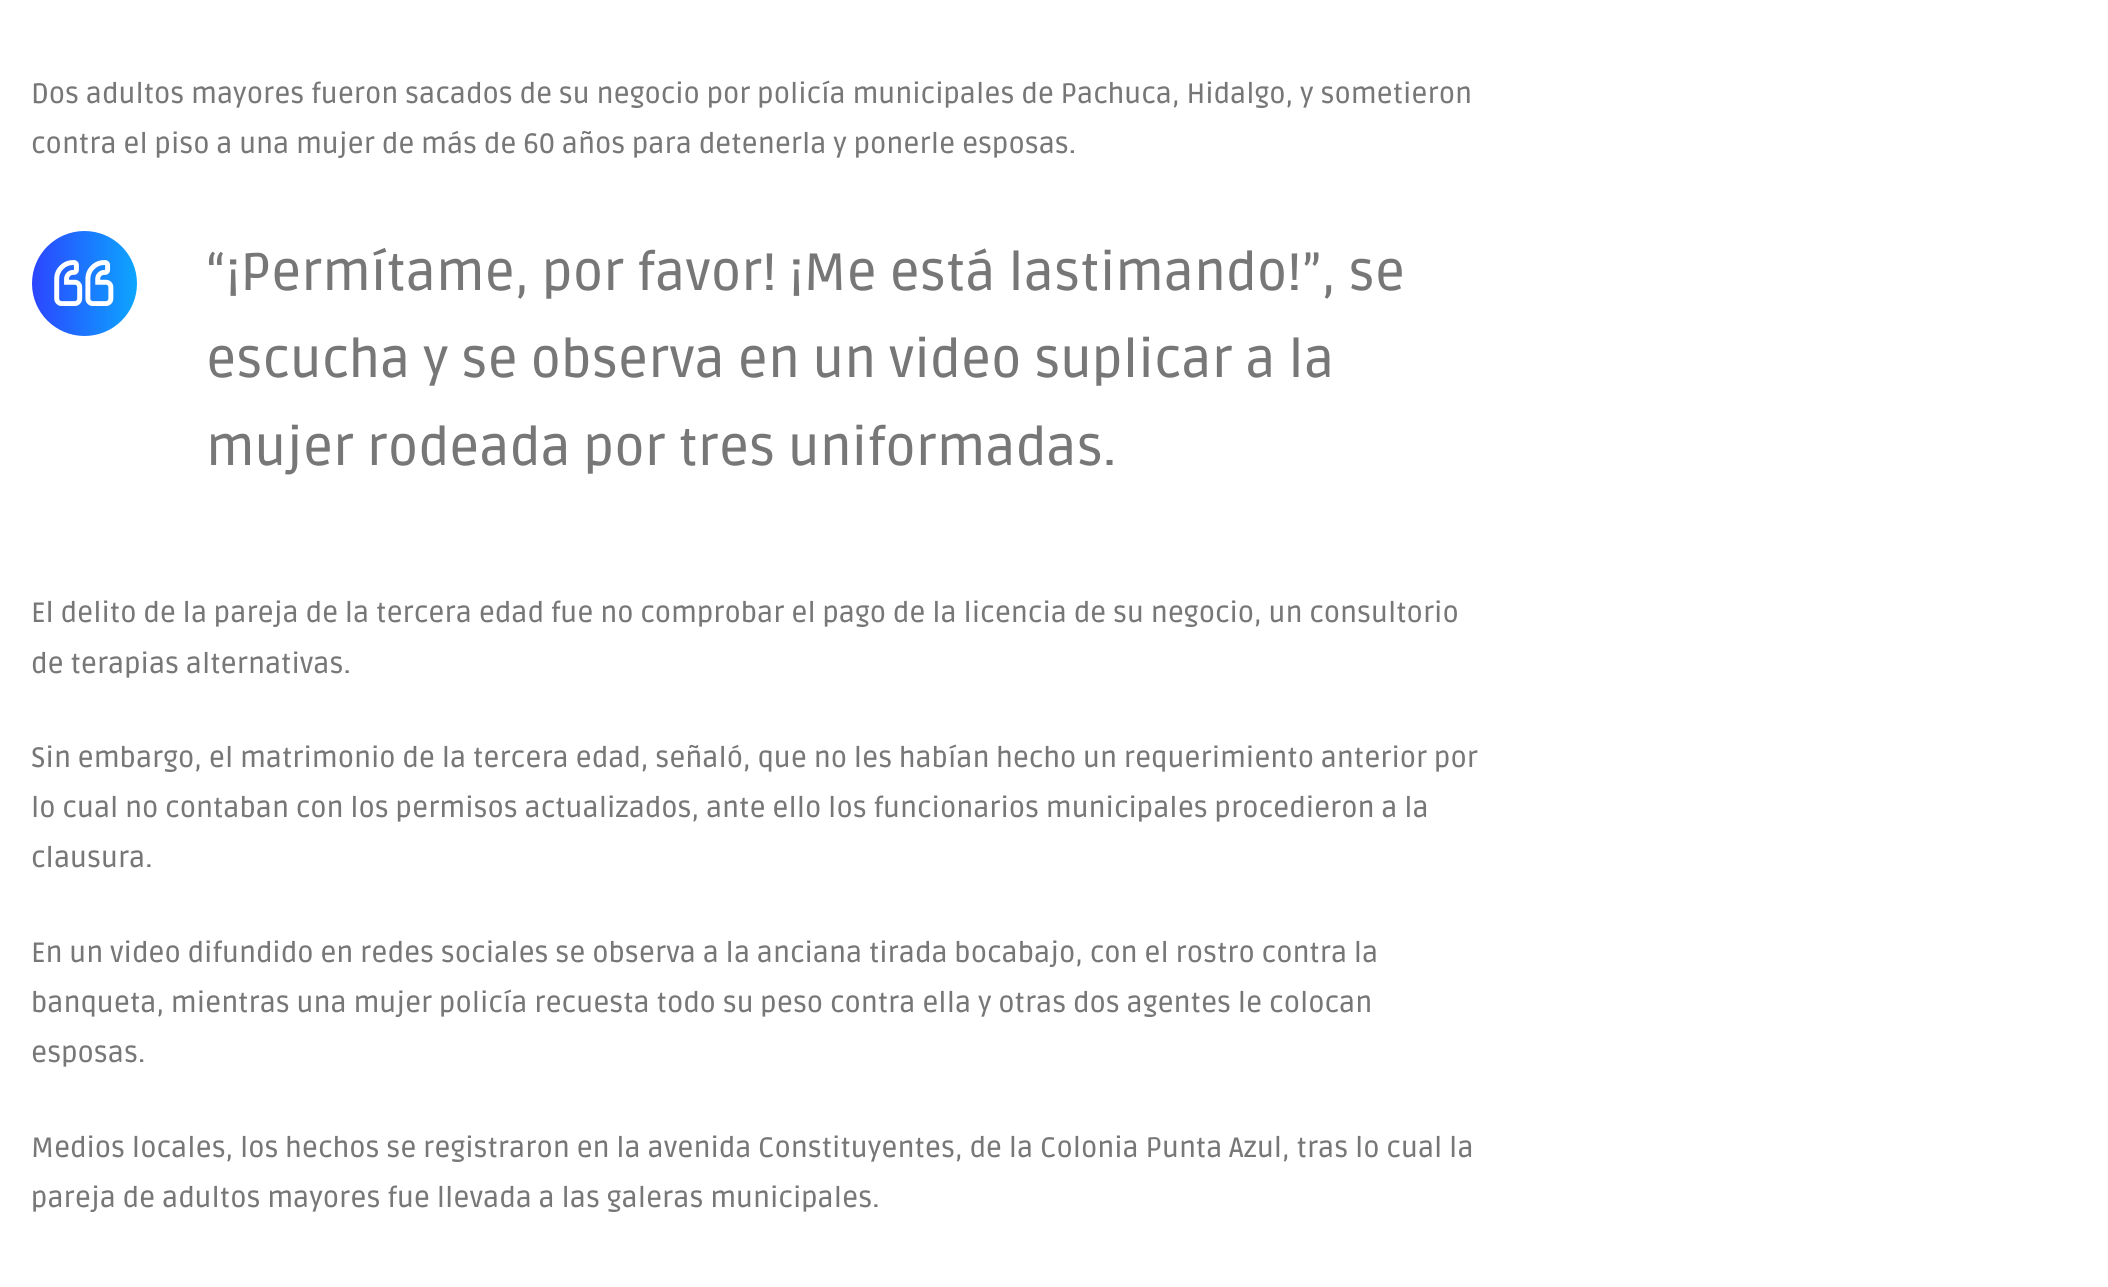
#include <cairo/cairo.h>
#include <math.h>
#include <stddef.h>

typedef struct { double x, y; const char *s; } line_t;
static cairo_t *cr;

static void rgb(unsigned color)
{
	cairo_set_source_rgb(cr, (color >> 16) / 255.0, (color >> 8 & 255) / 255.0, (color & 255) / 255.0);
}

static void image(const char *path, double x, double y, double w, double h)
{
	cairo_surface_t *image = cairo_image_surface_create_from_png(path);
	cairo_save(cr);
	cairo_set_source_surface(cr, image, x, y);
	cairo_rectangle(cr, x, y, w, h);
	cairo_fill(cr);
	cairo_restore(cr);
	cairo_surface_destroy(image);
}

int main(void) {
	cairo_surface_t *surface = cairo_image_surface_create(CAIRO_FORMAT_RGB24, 2108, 1287);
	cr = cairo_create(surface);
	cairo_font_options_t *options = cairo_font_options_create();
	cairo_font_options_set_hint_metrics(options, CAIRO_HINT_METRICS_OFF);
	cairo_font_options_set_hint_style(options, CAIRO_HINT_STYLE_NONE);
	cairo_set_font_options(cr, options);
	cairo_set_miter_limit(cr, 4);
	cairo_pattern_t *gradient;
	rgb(0xffffff);
	cairo_paint(cr);
	gradient = cairo_pattern_create_linear(31, 284, 137, 284);
	cairo_pattern_add_color_stop_rgba(gradient, 0, 0.173, 0.267, 1, 1);
	cairo_pattern_add_color_stop_rgba(gradient, 1, 0.047, 0.651, 1, 1);
	cairo_set_source(cr, gradient);
	cairo_pattern_destroy(gradient);
	cairo_arc(cr, 84.5, 283.5, 52.5, 0, 2 * M_PI);
	cairo_fill(cr);
	image("img/1.png", 54, 260, 60, 46);
	cairo_select_font_face(cr, "Ruda Medium", CAIRO_FONT_SLANT_NORMAL, CAIRO_FONT_WEIGHT_NORMAL);
	cairo_set_font_size(cr, 28);
	rgb(0x777777);
	cairo_move_to(cr, 31, 103);
	cairo_show_text(cr, "Dos adultos mayores fueron sacados de su negocio por policía municipales de Pachuca, Hidalgo, y sometieron");
	cairo_move_to(cr, 31, 153);
	cairo_show_text(cr, "contra el piso a una mujer de más de 60 años para detenerla y ponerle esposas.");
	cairo_set_font_size(cr, 52.5);
	{
		static const line_t items[] = {
			{206, 290, "“¡Permítame, por favor! ¡Me está lastimando!”, se"},
			{206, 377, "escucha y se observa en un video suplicar a la"},
			{206, 465, "mujer rodeada por tres uniformadas."},
		};
		for (size_t i = 0; i < sizeof items / sizeof *items; i++) {
			cairo_move_to(cr, items[i].x, items[i].y);
			cairo_show_text(cr, items[i].s);
		}
	}
	cairo_set_font_size(cr, 28);
	{
		static const line_t items[] = {
			{31, 622, "El delito de la pareja de la tercera edad fue no comprobar el pago de la licencia de su negocio, un consultorio"},
			{31, 673, "de terapias alternativas."},
			{31, 767, "Sin embargo, el matrimonio de la tercera edad, señaló, que no les habían hecho un requerimiento anterior por"},
			{31, 817, "lo cual no contaban con los permisos actualizados, ante ello los funcionarios municipales procedieron a la"},
			{31, 867, "clausura."},
			{31, 962, "En un video difundido en redes sociales se observa a la anciana tirada bocabajo, con el rostro contra la"},
			{31, 1012, "banqueta, mientras una mujer policía recuesta todo su peso contra ella y otras dos agentes le colocan"},
			{31, 1062, "esposas."},
			{31, 1157, "Medios locales, los hechos se registraron en la avenida Constituyentes, de la Colonia Punta Azul, tras lo cual la"},
			{31, 1207, "pareja de adultos mayores fue llevada a las galeras municipales."},
		};
		for (size_t i = 0; i < sizeof items / sizeof *items; i++) {
			cairo_move_to(cr, items[i].x, items[i].y);
			cairo_show_text(cr, items[i].s);
		}
	}
	cairo_surface_write_to_png(surface, "page.png");
	cairo_font_options_destroy(options);
	cairo_destroy(cr);
	cairo_surface_destroy(surface);
	return 0;
}
